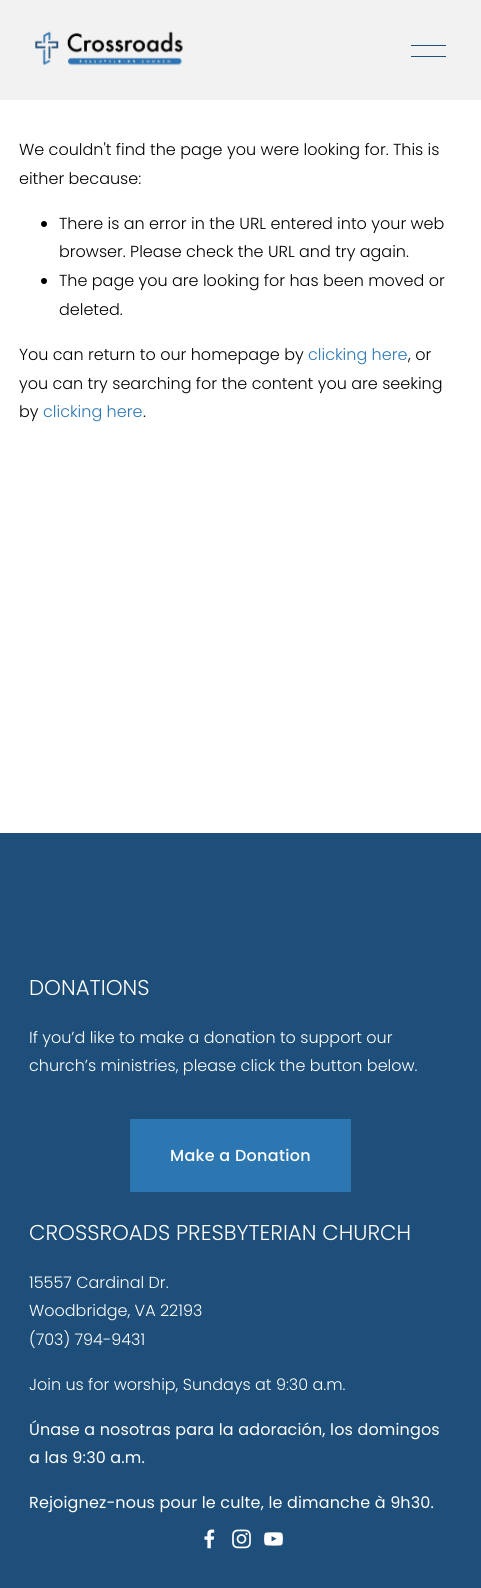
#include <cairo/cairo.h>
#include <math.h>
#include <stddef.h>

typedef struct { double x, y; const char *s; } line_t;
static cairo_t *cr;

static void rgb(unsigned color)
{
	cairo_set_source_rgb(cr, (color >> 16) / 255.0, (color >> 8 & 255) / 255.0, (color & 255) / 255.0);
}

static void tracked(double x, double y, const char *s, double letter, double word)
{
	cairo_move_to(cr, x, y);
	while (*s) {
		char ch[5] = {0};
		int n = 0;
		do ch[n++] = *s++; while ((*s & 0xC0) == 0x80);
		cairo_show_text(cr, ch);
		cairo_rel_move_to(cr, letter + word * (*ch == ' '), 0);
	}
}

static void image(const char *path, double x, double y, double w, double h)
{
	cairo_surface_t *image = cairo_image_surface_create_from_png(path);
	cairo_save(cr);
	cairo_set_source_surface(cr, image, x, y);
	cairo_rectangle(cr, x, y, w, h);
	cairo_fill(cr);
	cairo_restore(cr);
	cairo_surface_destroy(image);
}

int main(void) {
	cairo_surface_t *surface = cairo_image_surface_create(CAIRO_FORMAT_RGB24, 481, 1588);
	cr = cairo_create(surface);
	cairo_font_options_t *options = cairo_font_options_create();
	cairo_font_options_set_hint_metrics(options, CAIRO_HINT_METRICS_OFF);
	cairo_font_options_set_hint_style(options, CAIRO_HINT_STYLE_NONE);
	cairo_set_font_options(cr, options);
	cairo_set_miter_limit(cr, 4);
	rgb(0xffffff);
	cairo_paint(cr);
	rgb(0xf2f2f2);
	cairo_rectangle(cr, 0, 0, 481, 100);
	cairo_fill(cr);
	image("img/1.png", 35, 31, 148, 35);
	rgb(0x1e4f7a);
	cairo_rectangle(cr, 411, 45, 35, 1);
	cairo_fill(cr);
	cairo_rectangle(cr, 411, 56, 35, 1);
	cairo_fill(cr);
	rgb(0x000000);
	cairo_arc(cr, 44, 224, 3, 0, 2 * M_PI);
	cairo_fill(cr);
	cairo_arc(cr, 44, 281, 3, 0, 2 * M_PI);
	cairo_fill(cr);
	rgb(0x1e4f7a);
	cairo_rectangle(cr, 0, 833, 481, 755);
	cairo_fill(cr);
	rgb(0x2c77b1);
	cairo_rectangle(cr, 130, 1119, 221, 73);
	cairo_fill(cr);
	image("img/2.png", 204, 1529, 11, 20);
	image("img/3.png", 232, 1529, 19, 20);
	image("img/4.png", 264, 1532, 19, 14);
	cairo_select_font_face(cr, "Poppins Light", CAIRO_FONT_SLANT_NORMAL, CAIRO_FONT_WEIGHT_NORMAL);
	cairo_set_font_size(cr, 16);
	rgb(0x000000);
	{
		static const line_t items[] = {
			{19, 155, "We couldn't find the page you were looking for. This is"},
			{19, 184, "either because:"},
			{59, 229, "There is an error in the URL entered into your web"},
			{59, 257, "browser. Please check the URL and try again."},
			{59, 286, "The page you are looking for has been moved or"},
			{59, 315, "deleted."},
			{19, 360, "You can return to our homepage by"},
		};
		for (size_t i = 0; i < sizeof items / sizeof *items; i++) {
			cairo_move_to(cr, items[i].x, items[i].y);
			cairo_show_text(cr, items[i].s);
		}
	}
	rgb(0x2c77b1);
	cairo_move_to(cr, 308, 360);
	cairo_show_text(cr, "clicking here");
	rgb(0x000000);
	{
		static const line_t items[] = {
			{408, 360, ", or"},
			{19, 389, "you can try searching for the content you are seeking"},
			{19, 417, "by"},
		};
		for (size_t i = 0; i < sizeof items / sizeof *items; i++) {
			cairo_move_to(cr, items[i].x, items[i].y);
			cairo_show_text(cr, items[i].s);
		}
	}
	rgb(0x2c77b1);
	cairo_move_to(cr, 43, 417);
	cairo_show_text(cr, "clicking here");
	rgb(0x000000);
	cairo_move_to(cr, 143, 417);
	cairo_show_text(cr, ".");
	cairo_set_font_size(cr, 21.4);
	rgb(0xffffff);
	cairo_move_to(cr, 29, 995);
	cairo_show_text(cr, "DONATIONS");
	cairo_set_font_size(cr, 16);
	cairo_move_to(cr, 29, 1043);
	cairo_show_text(cr, "If you’d like to make a donation to support our");
	cairo_move_to(cr, 29, 1071);
	cairo_show_text(cr, "church’s ministries, please click the button below.");
	cairo_select_font_face(cr, "Poppins Medium", CAIRO_FONT_SLANT_NORMAL, CAIRO_FONT_WEIGHT_NORMAL);
	tracked(170, 1161, "Make a Donation", 0.3, 0);
	cairo_select_font_face(cr, "Poppins Light", CAIRO_FONT_SLANT_NORMAL, CAIRO_FONT_WEIGHT_NORMAL);
	cairo_set_font_size(cr, 21.4);
	cairo_move_to(cr, 29, 1240);
	cairo_show_text(cr, "CROSSROADS PRESBYTERIAN CHURCH");
	cairo_set_font_size(cr, 16);
	{
		static const line_t items[] = {
			{29, 1288, "15557 Cardinal Dr."},
			{29, 1316, "Woodbridge, VA 22193"},
			{29, 1345, "(703) 794-9431"},
			{29, 1390, "Join us for worship, Sundays at 9:30 a.m."},
		};
		for (size_t i = 0; i < sizeof items / sizeof *items; i++) {
			cairo_move_to(cr, items[i].x, items[i].y);
			cairo_show_text(cr, items[i].s);
		}
	}
	cairo_select_font_face(cr, "Poppins", CAIRO_FONT_SLANT_NORMAL, CAIRO_FONT_WEIGHT_NORMAL);
	{
		static const line_t items[] = {
			{29, 1435, "Únase a nosotras para la adoración, los domingos"},
			{29, 1463, "a las 9:30 a.m."},
			{29, 1508, "Rejoignez-nous pour le culte, le dimanche à 9h30."},
		};
		for (size_t i = 0; i < sizeof items / sizeof *items; i++) {
			tracked(items[i].x, items[i].y, items[i].s, 0.15, 0);
		}
	}
	cairo_surface_write_to_png(surface, "page.png");
	cairo_font_options_destroy(options);
	cairo_destroy(cr);
	cairo_surface_destroy(surface);
	return 0;
}
